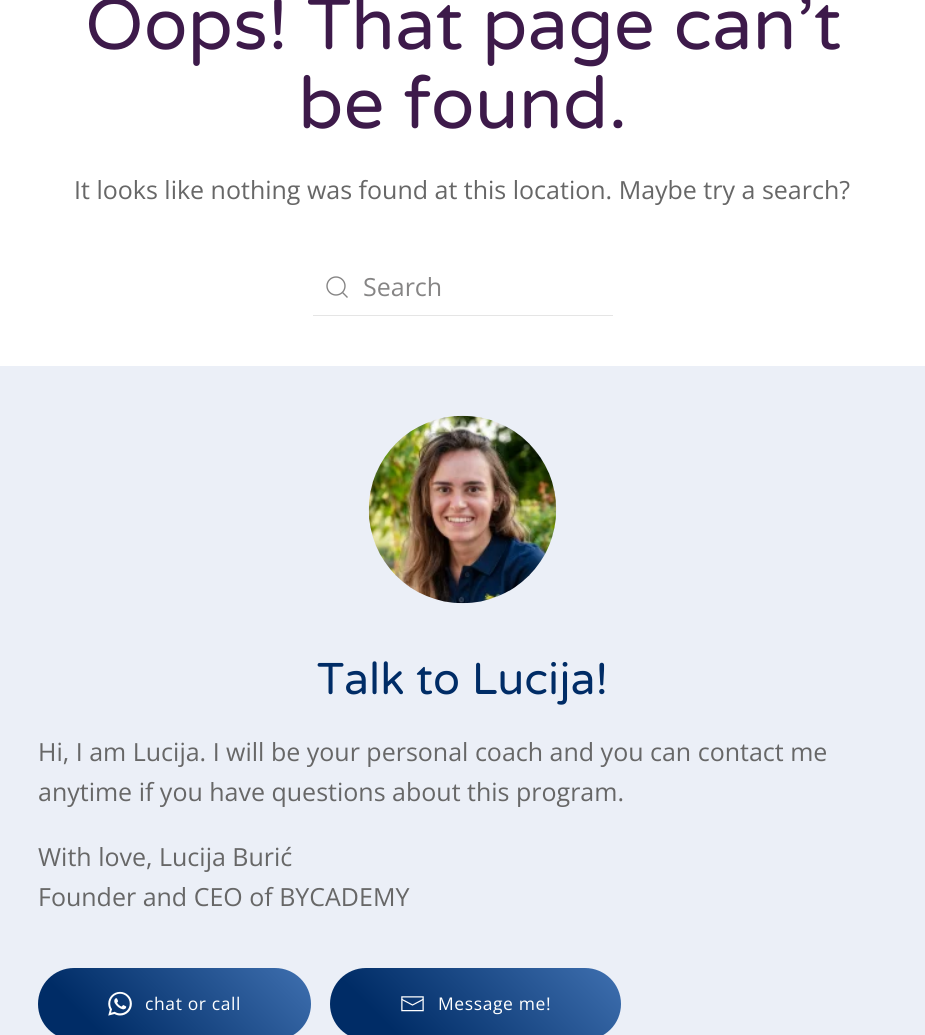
#include <cairo/cairo.h>
#include <math.h>
#include <stddef.h>

typedef struct { double x, y; const char *s; } line_t;
static cairo_t *cr;

static void rgb(unsigned color)
{
	cairo_set_source_rgb(cr, (color >> 16) / 255.0, (color >> 8 & 255) / 255.0, (color & 255) / 255.0);
}

static void tracked(double x, double y, const char *s, double letter, double word)
{
	cairo_move_to(cr, x, y);
	while (*s) {
		char ch[5] = {0};
		int n = 0;
		do ch[n++] = *s++; while ((*s & 0xC0) == 0x80);
		cairo_show_text(cr, ch);
		cairo_rel_move_to(cr, letter + word * (*ch == ' '), 0);
	}
}

static void rrect(double x, double y, double w, double h, double r)
{
	cairo_new_sub_path(cr);
	cairo_arc(cr, x + w - r, y + h - r, r, 0, M_PI / 2);
	cairo_arc(cr, x + r, y + h - r, r, M_PI / 2, M_PI);
	cairo_arc(cr, x + r, y + r, r, M_PI, 1.5 * M_PI);
	cairo_arc(cr, x + w - r, y + r, r, 1.5 * M_PI, 2 * M_PI);
	cairo_close_path(cr);
}

static void image(const char *path, double x, double y, double w, double h)
{
	cairo_surface_t *image = cairo_image_surface_create_from_png(path);
	cairo_save(cr);
	cairo_set_source_surface(cr, image, x, y);
	cairo_rectangle(cr, x, y, w, h);
	cairo_fill(cr);
	cairo_restore(cr);
	cairo_surface_destroy(image);
}

int main(void) {
	cairo_surface_t *surface = cairo_image_surface_create(CAIRO_FORMAT_RGB24, 925, 1035);
	cr = cairo_create(surface);
	cairo_font_options_t *options = cairo_font_options_create();
	cairo_font_options_set_hint_metrics(options, CAIRO_HINT_METRICS_OFF);
	cairo_font_options_set_hint_style(options, CAIRO_HINT_STYLE_NONE);
	cairo_set_font_options(cr, options);
	cairo_set_miter_limit(cr, 4);
	cairo_pattern_t *gradient;
	rgb(0xffffff);
	cairo_paint(cr);
	cairo_arc(cr, 336, 286, 9, 0, 2 * M_PI);
	rgb(0x868585);
	cairo_set_line_width(cr, 1.4);
	cairo_stroke(cr);
	cairo_new_path(cr);
	cairo_move_to(cr, 342.5, 292.5);
	cairo_line_to(cr, 347.5, 297.5);
	cairo_close_path(cr);
	cairo_stroke(cr);
	rgb(0xe5e5e5);
	cairo_rectangle(cr, 313, 315, 300, 1);
	cairo_fill(cr);
	rgb(0xebeff7);
	cairo_rectangle(cr, 0, 366, 925, 669);
	cairo_fill(cr);
	image("img/1.png", 368, 415, 189, 189);
	gradient = cairo_pattern_create_linear(88, 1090, 261, 917);
	cairo_pattern_add_color_stop_rgba(gradient, 0.2, 0, 0.173, 0.4, 1);
	cairo_pattern_add_color_stop_rgba(gradient, 1, 0.247, 0.439, 0.69, 1);
	cairo_set_source(cr, gradient);
	cairo_pattern_destroy(gradient);
	rrect(38, 968, 273, 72, 36);
	cairo_fill(cr);
	image("img/2.png", 108, 991, 24, 25);
	gradient = cairo_pattern_create_linear(385, 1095, 567, 913);
	cairo_pattern_add_color_stop_rgba(gradient, 0.2, 0, 0.173, 0.4, 1);
	cairo_pattern_add_color_stop_rgba(gradient, 1, 0.247, 0.439, 0.69, 1);
	cairo_set_source(cr, gradient);
	cairo_pattern_destroy(gradient);
	rrect(330, 968, 291, 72, 36);
	cairo_fill(cr);
	image("img/3.png", 401, 996, 23, 16);
	cairo_select_font_face(cr, "Varela Round", CAIRO_FONT_SLANT_NORMAL, CAIRO_FONT_WEIGHT_NORMAL);
	cairo_set_font_size(cr, 72.25);
	rgb(0x3d1a4a);
	cairo_move_to(cr, 85, 49);
	cairo_show_text(cr, "Oops! That page can’t");
	cairo_move_to(cr, 298, 128);
	cairo_show_text(cr, "be found.");
	cairo_select_font_face(cr, "Open Sans", CAIRO_FONT_SLANT_NORMAL, CAIRO_FONT_WEIGHT_NORMAL);
	cairo_set_font_size(cr, 25);
	rgb(0x676767);
	cairo_move_to(cr, 74, 199);
	cairo_show_text(cr, "It looks like nothing was found at this location. Maybe try a search?");
	rgb(0x868585);
	cairo_move_to(cr, 363, 296);
	cairo_show_text(cr, "Search");
	cairo_select_font_face(cr, "Varela Round", CAIRO_FONT_SLANT_NORMAL, CAIRO_FONT_WEIGHT_NORMAL);
	cairo_set_font_size(cr, 44.5);
	rgb(0x002c66);
	cairo_move_to(cr, 317, 694);
	cairo_show_text(cr, "Talk to Lucija!");
	cairo_select_font_face(cr, "Open Sans", CAIRO_FONT_SLANT_NORMAL, CAIRO_FONT_WEIGHT_NORMAL);
	cairo_set_font_size(cr, 25);
	rgb(0x676767);
	{
		static const line_t items[] = {
			{38, 761, "Hi, I am Lucija. I will be your personal coach and you can contact me"},
			{38, 801, "anytime if you have questions about this program."},
			{38, 866, "With love, Lucija Burić"},
			{38, 906, "Founder and CEO of BYCADEMY"},
		};
		for (size_t i = 0; i < sizeof items / sizeof *items; i++) {
			cairo_move_to(cr, items[i].x, items[i].y);
			cairo_show_text(cr, items[i].s);
		}
	}
	cairo_set_font_size(cr, 17.5);
	rgb(0xffffff);
	tracked(145, 1010, "chat or call", 0.6, 0);
	tracked(438, 1010, "Message me!", 0.6, 0);
	cairo_surface_write_to_png(surface, "page.png");
	cairo_font_options_destroy(options);
	cairo_destroy(cr);
	cairo_surface_destroy(surface);
	return 0;
}
